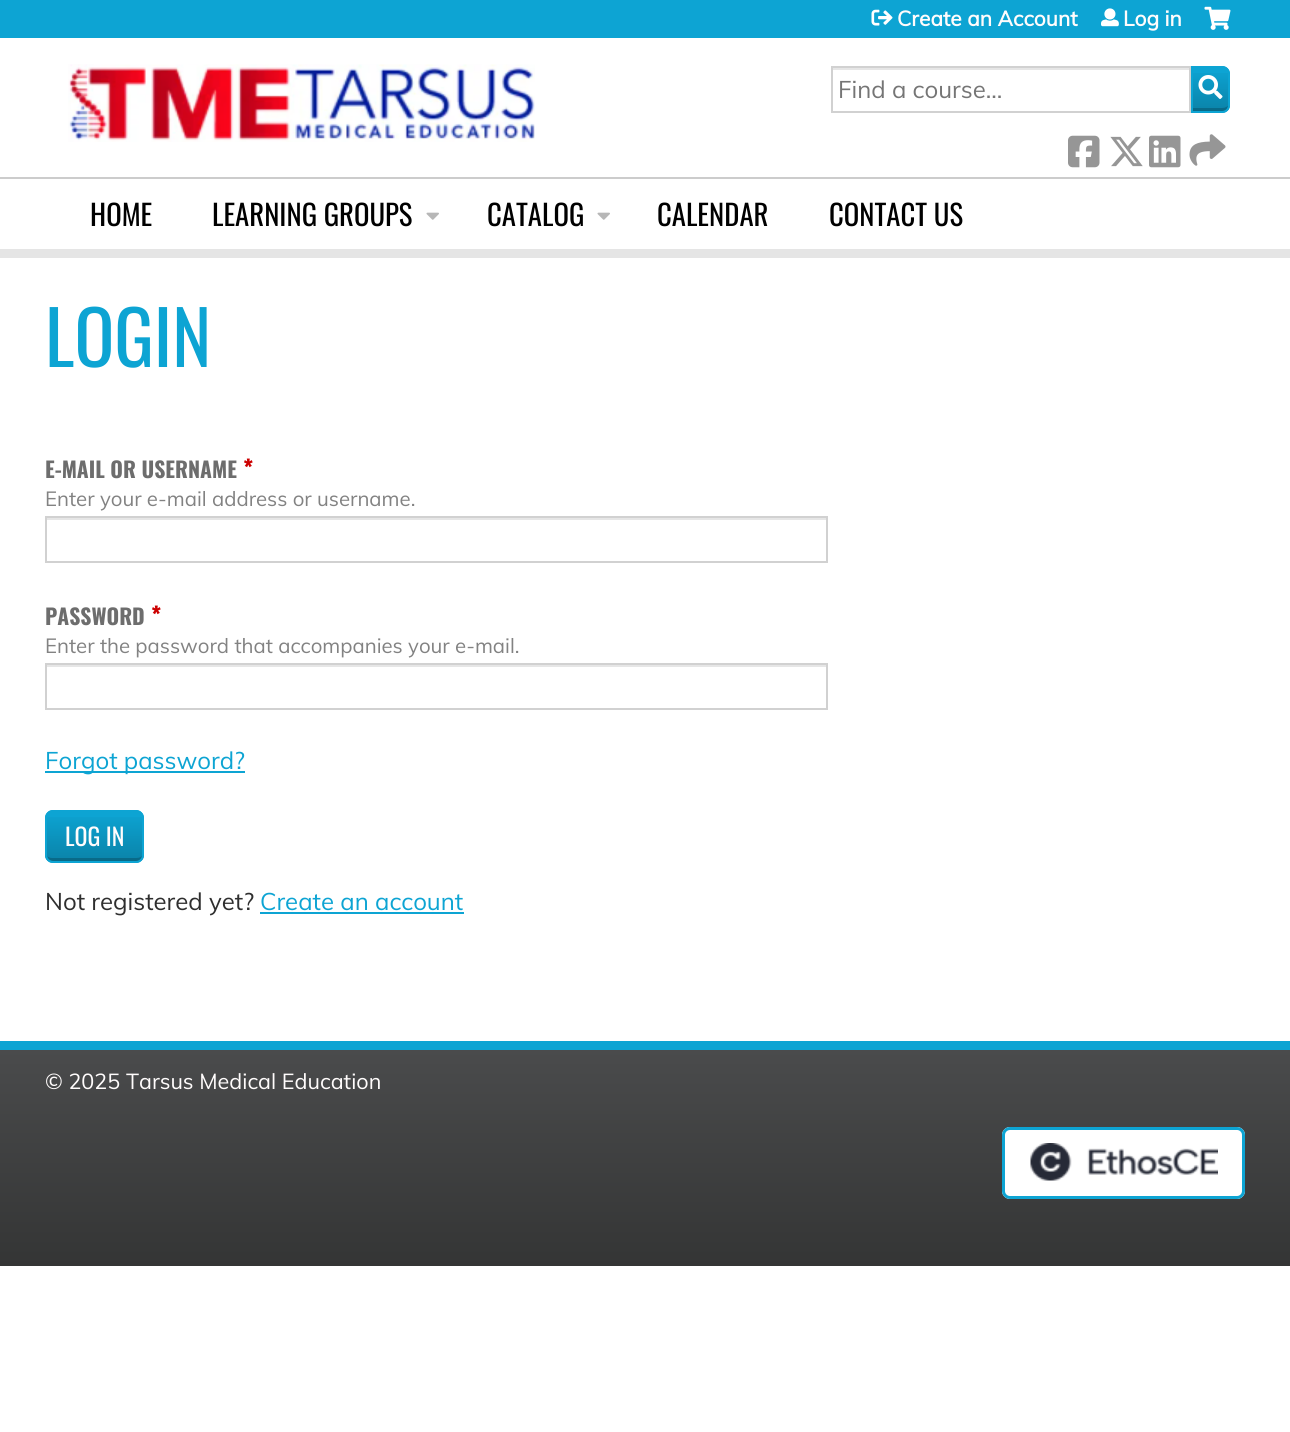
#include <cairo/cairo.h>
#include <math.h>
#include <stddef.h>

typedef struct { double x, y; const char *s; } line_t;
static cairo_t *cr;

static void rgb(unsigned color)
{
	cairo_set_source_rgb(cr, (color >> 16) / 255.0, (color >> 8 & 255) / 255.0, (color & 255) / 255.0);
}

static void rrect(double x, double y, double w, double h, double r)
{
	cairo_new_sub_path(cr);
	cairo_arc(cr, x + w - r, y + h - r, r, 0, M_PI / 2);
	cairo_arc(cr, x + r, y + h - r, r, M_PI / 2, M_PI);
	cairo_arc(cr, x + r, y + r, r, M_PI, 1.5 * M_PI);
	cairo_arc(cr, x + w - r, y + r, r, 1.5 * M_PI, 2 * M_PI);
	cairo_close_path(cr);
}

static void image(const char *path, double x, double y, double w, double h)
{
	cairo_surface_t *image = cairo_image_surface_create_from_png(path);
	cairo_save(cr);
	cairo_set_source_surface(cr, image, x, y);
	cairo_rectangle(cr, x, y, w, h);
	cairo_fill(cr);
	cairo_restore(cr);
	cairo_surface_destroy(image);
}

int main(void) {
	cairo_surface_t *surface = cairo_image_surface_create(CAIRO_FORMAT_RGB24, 1290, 1432);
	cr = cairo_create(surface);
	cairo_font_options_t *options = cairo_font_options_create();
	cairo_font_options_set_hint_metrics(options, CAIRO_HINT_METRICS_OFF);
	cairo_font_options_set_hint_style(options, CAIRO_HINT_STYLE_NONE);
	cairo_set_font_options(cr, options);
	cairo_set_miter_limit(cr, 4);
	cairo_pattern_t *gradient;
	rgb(0xffffff);
	cairo_paint(cr);
	rgb(0x0da4d3);
	cairo_rectangle(cr, 0, 0, 1290, 38);
	cairo_fill(cr);
	image("img/1.png", 68, 64, 467, 78);
	image("img/2.png", 871, 9, 22, 17);
	image("img/3.png", 1101, 8, 18, 19);
	image("img/4.png", 1204, 6, 27, 24);
	cairo_new_path(cr);
	cairo_move_to(cr, 1191, 66);
	cairo_line_to(cr, 1222, 66);
	cairo_curve_to(cr, 1226.5, 66, 1230, 69.5, 1230, 74);
	cairo_line_to(cr, 1230, 105);
	cairo_curve_to(cr, 1230, 109.5, 1226.5, 113, 1222, 113);
	cairo_line_to(cr, 1191, 113);
	cairo_close_path(cr);
	cairo_fill(cr);
	cairo_save(cr);
	cairo_new_path(cr);
	cairo_move_to(cr, 1191, 66);
	cairo_line_to(cr, 1222, 66);
	cairo_curve_to(cr, 1226.5, 66, 1230, 69.5, 1230, 74);
	cairo_line_to(cr, 1230, 105);
	cairo_curve_to(cr, 1230, 109.5, 1226.5, 113, 1222, 113);
	cairo_line_to(cr, 1191, 113);
	cairo_close_path(cr);
	cairo_clip(cr);
	gradient = cairo_pattern_create_linear(1211, 111, 1211, 68);
	cairo_pattern_add_color_stop_rgba(gradient, 0, 0, 0, 0, 0.2);
	cairo_pattern_add_color_stop_rgba(gradient, 1, 0, 0, 0, 0);
	cairo_set_source(cr, gradient);
	cairo_pattern_destroy(gradient);
	cairo_rectangle(cr, 1193, 73, 37, 38);
	cairo_fill(cr);
	cairo_restore(cr);
	cairo_set_source_rgba(cr, 0, 0, 0, 0.2);
	cairo_new_path(cr);
	cairo_move_to(cr, 1193, 108);
	cairo_line_to(cr, 1193, 111);
	cairo_line_to(cr, 1223, 111);
	cairo_curve_to(cr, 1226.5, 111, 1229, 108.5, 1229, 105);
	cairo_line_to(cr, 1229, 104.5);
	cairo_curve_to(cr, 1227.5, 106.5, 1225.5, 108, 1222, 108);
	cairo_close_path(cr);
	cairo_fill(cr);
	cairo_new_path(cr);
	cairo_move_to(cr, 1192, 67);
	cairo_line_to(cr, 1222, 67);
	cairo_curve_to(cr, 1226, 67, 1229, 70, 1229, 74);
	cairo_line_to(cr, 1229, 105);
	cairo_curve_to(cr, 1229, 109, 1226, 112, 1222, 112);
	cairo_line_to(cr, 1192, 112);
	cairo_close_path(cr);
	rgb(0x0da4d3);
	cairo_stroke(cr);
	rgb(0xe6e6e6);
	cairo_rectangle(cr, 833, 68, 357, 2);
	cairo_fill(cr);
	cairo_rectangle(cr, 832, 67, 358, 45);
	rgb(0xd1d1d1);
	cairo_stroke(cr);
	image("img/5.png", 1198, 75, 25, 24);
	image("img/6.png", 1068, 135, 32, 33);
	image("img/7.png", 1110, 136, 33, 31);
	image("img/8.png", 1149, 135, 32, 33);
	image("img/9.png", 1189, 134, 37, 32);
	rgb(0xcccccc);
	cairo_rectangle(cr, 0, 177, 1290, 2);
	cairo_fill(cr);
	rgb(0xe5e5e5);
	cairo_rectangle(cr, 0, 249, 1290, 9);
	cairo_fill(cr);
	image("img/10.png", 426, 212, 13, 8);
	image("img/10.png", 597, 212, 13, 8);
	rgb(0xe6e6e6);
	cairo_rectangle(cr, 47, 518, 780, 2);
	cairo_fill(cr);
	cairo_rectangle(cr, 46, 517, 781, 45);
	rgb(0xd1d1d1);
	cairo_stroke(cr);
	rgb(0xe6e6e6);
	cairo_rectangle(cr, 47, 665, 780, 2);
	cairo_fill(cr);
	cairo_rectangle(cr, 46, 664, 781, 45);
	rgb(0xd1d1d1);
	cairo_stroke(cr);
	rgb(0x0da4d3);
	cairo_rectangle(cr, 45, 771, 200, 2);
	cairo_fill(cr);
	rrect(45, 810, 99, 53, 8);
	cairo_fill(cr);
	cairo_save(cr);
	rrect(45, 810, 99, 53, 8);
	cairo_clip(cr);
	gradient = cairo_pattern_create_linear(95, 861, 95, 812);
	cairo_pattern_add_color_stop_rgba(gradient, 0, 0, 0, 0, 0.2);
	cairo_pattern_add_color_stop_rgba(gradient, 1, 0, 0, 0, 0);
	cairo_set_source(cr, gradient);
	cairo_pattern_destroy(gradient);
	cairo_rectangle(cr, 45, 817, 99, 44);
	cairo_fill(cr);
	cairo_restore(cr);
	cairo_set_source_rgba(cr, 0, 0, 0, 0.2);
	cairo_new_path(cr);
	cairo_move_to(cr, 47, 856);
	cairo_curve_to(cr, 48, 859, 50, 861, 53, 861);
	cairo_line_to(cr, 137, 861);
	cairo_curve_to(cr, 140, 861, 143, 858, 143, 855);
	cairo_line_to(cr, 143, 854);
	cairo_curve_to(cr, 142, 857, 139, 858, 136, 858);
	cairo_line_to(cr, 52, 858);
	cairo_curve_to(cr, 50, 858, 48, 857, 47, 856);
	cairo_close_path(cr);
	cairo_fill(cr);
	rrect(46, 811, 97, 51, 7);
	rgb(0x0da4d3);
	cairo_stroke(cr);
	cairo_rectangle(cr, 260, 912, 204, 2);
	cairo_fill(cr);
	gradient = cairo_pattern_create_linear(645, 1266, 645, 1050);
	cairo_pattern_add_color_stop_rgba(gradient, 0, 0.204, 0.208, 0.208, 1);
	cairo_pattern_add_color_stop_rgba(gradient, 1, 0.29, 0.294, 0.298, 1);
	cairo_set_source(cr, gradient);
	cairo_pattern_destroy(gradient);
	cairo_rectangle(cr, 0, 1050, 1290, 216);
	cairo_fill(cr);
	rgb(0x0da4d3);
	cairo_rectangle(cr, 0, 1041, 1290, 9);
	cairo_fill(cr);
	rgb(0xffffff);
	rrect(1002, 1127, 243, 72, 8);
	cairo_fill(cr);
	image("img/11.png", 1030, 1143, 188, 38);
	rrect(1003.5, 1128.5, 240, 69, 6.5);
	rgb(0x0da4d3);
	cairo_set_line_width(cr, 3);
	cairo_stroke(cr);
	cairo_select_font_face(cr, "Muli", CAIRO_FONT_SLANT_NORMAL, CAIRO_FONT_WEIGHT_BOLD);
	cairo_set_font_size(cr, 21);
	rgb(0xfffcfc);
	cairo_move_to(cr, 897, 26);
	cairo_show_text(cr, "Create an Account");
	cairo_move_to(cr, 1123, 26);
	cairo_show_text(cr, "Log in");
	cairo_select_font_face(cr, "Muli", CAIRO_FONT_SLANT_NORMAL, CAIRO_FONT_WEIGHT_NORMAL);
	cairo_set_font_size(cr, 24);
	rgb(0x757575);
	cairo_move_to(cr, 838, 98);
	cairo_show_text(cr, "Find a course...");
	cairo_select_font_face(cr, "Oswald", CAIRO_FONT_SLANT_NORMAL, CAIRO_FONT_WEIGHT_NORMAL);
	cairo_set_font_size(cr, 28.75);
	rgb(0x000000);
	{
		static const line_t items[] = {
			{90, 226, "HOME"},
			{212, 226, "LEARNING GROUPS"},
			{487, 226, "CATALOG"},
			{657, 226, "CALENDAR"},
			{829, 226, "CONTACT US"},
		};
		for (size_t i = 0; i < sizeof items / sizeof *items; i++) {
			cairo_move_to(cr, items[i].x, items[i].y);
			cairo_show_text(cr, items[i].s);
		}
	}
	cairo_set_font_size(cr, 74);
	rgb(0x0da4d3);
	cairo_move_to(cr, 45, 367);
	cairo_show_text(cr, "LOGIN");
	cairo_select_font_face(cr, "Oswald", CAIRO_FONT_SLANT_NORMAL, CAIRO_FONT_WEIGHT_BOLD);
	cairo_set_font_size(cr, 21.6);
	rgb(0x6d6d6d);
	cairo_move_to(cr, 45, 478);
	cairo_show_text(cr, "E-MAIL OR USERNAME");
	cairo_set_font_size(cr, 24);
	rgb(0xcc0000);
	cairo_move_to(cr, 243, 478);
	cairo_show_text(cr, "*");
	cairo_select_font_face(cr, "Muli", CAIRO_FONT_SLANT_NORMAL, CAIRO_FONT_WEIGHT_NORMAL);
	cairo_set_font_size(cr, 20.4);
	rgb(0x828282);
	cairo_move_to(cr, 45, 506);
	cairo_show_text(cr, "Enter your e-mail address or username.");
	cairo_select_font_face(cr, "Oswald", CAIRO_FONT_SLANT_NORMAL, CAIRO_FONT_WEIGHT_BOLD);
	cairo_set_font_size(cr, 21.6);
	rgb(0x6d6d6d);
	cairo_move_to(cr, 45, 625);
	cairo_show_text(cr, "PASSWORD");
	cairo_set_font_size(cr, 24);
	rgb(0xcc0000);
	cairo_move_to(cr, 151, 625);
	cairo_show_text(cr, "*");
	cairo_select_font_face(cr, "Muli", CAIRO_FONT_SLANT_NORMAL, CAIRO_FONT_WEIGHT_NORMAL);
	cairo_set_font_size(cr, 20.4);
	rgb(0x828282);
	cairo_move_to(cr, 45, 653);
	cairo_show_text(cr, "Enter the password that accompanies your e-mail.");
	cairo_set_font_size(cr, 24);
	rgb(0x0da4d3);
	cairo_move_to(cr, 45, 769);
	cairo_show_text(cr, "Forgot password?");
	cairo_select_font_face(cr, "Oswald", CAIRO_FONT_SLANT_NORMAL, CAIRO_FONT_WEIGHT_NORMAL);
	rgb(0xfffcfc);
	cairo_move_to(cr, 65, 846);
	cairo_show_text(cr, "LOG IN");
	cairo_select_font_face(cr, "Muli", CAIRO_FONT_SLANT_NORMAL, CAIRO_FONT_WEIGHT_NORMAL);
	rgb(0x2f2f2f);
	cairo_move_to(cr, 45, 910);
	cairo_show_text(cr, "Not registered yet?");
	rgb(0x0da4d3);
	cairo_move_to(cr, 260, 910);
	cairo_show_text(cr, "Create an account");
	cairo_set_font_size(cr, 21.6);
	rgb(0xfffcfc);
	cairo_move_to(cr, 45, 1089);
	cairo_show_text(cr, "© 2025 Tarsus Medical Education");
	cairo_surface_write_to_png(surface, "page.png");
	cairo_font_options_destroy(options);
	cairo_destroy(cr);
	cairo_surface_destroy(surface);
	return 0;
}
